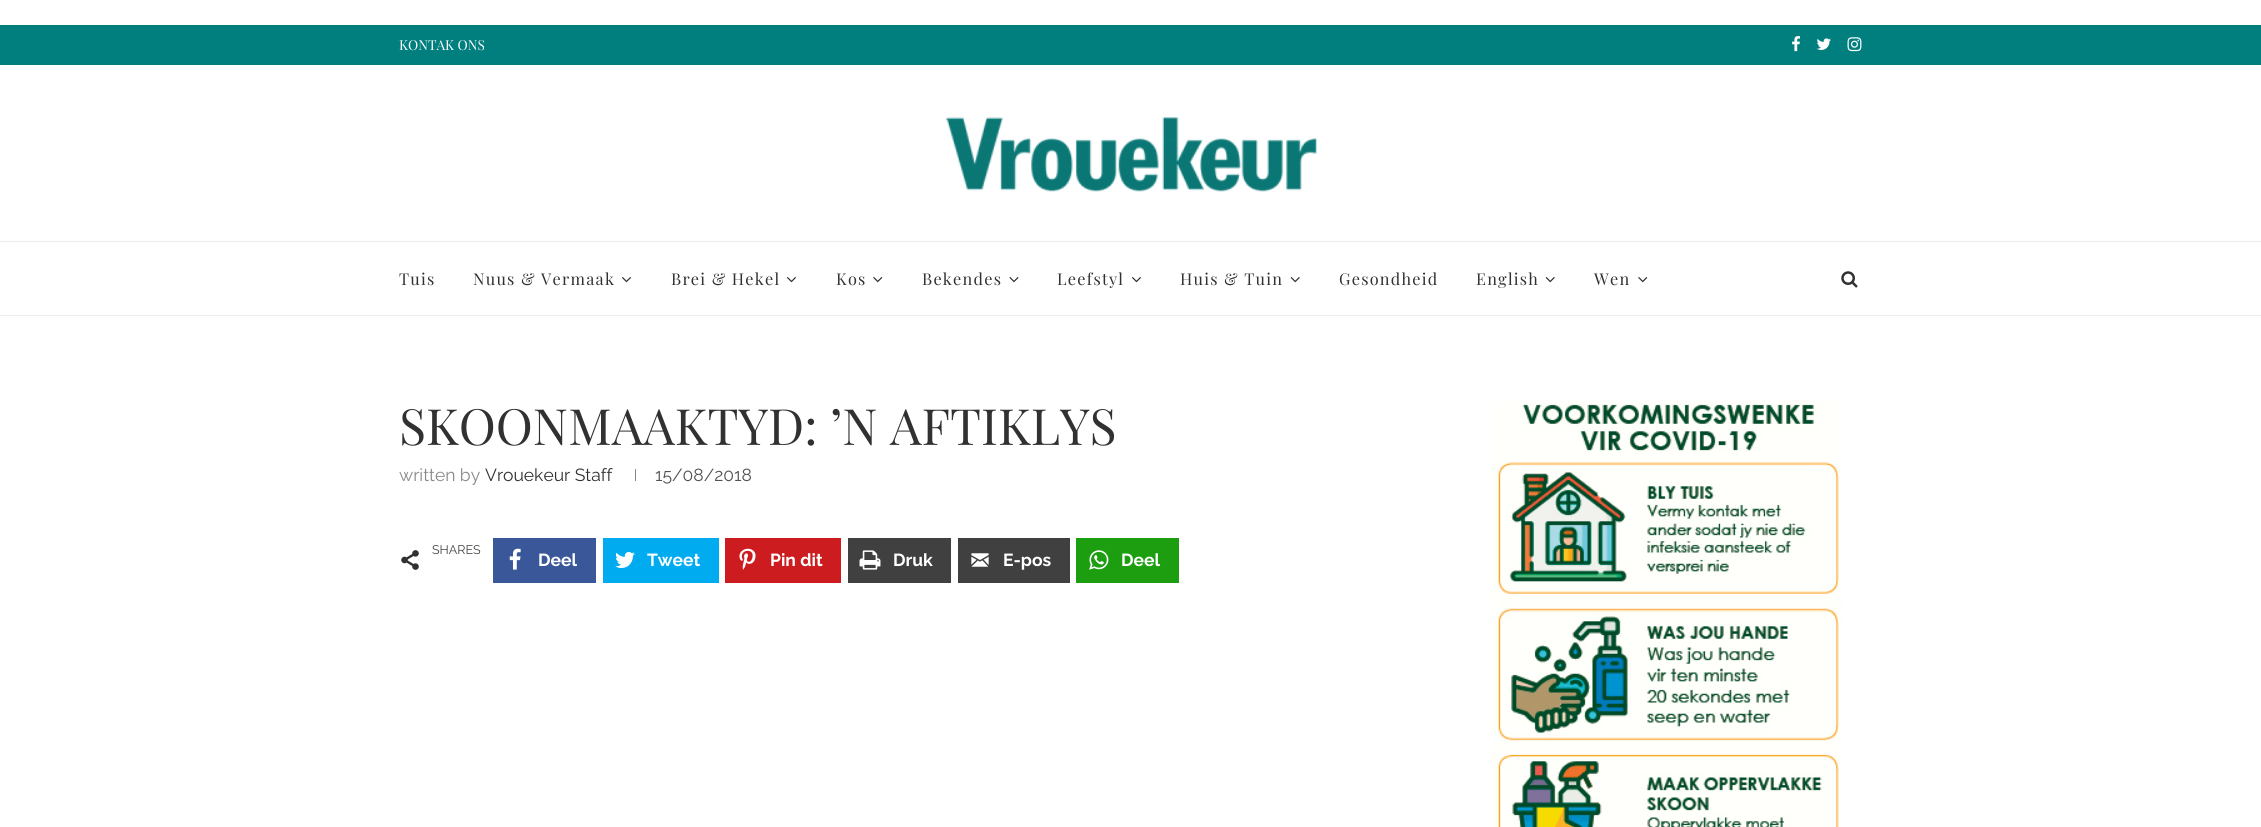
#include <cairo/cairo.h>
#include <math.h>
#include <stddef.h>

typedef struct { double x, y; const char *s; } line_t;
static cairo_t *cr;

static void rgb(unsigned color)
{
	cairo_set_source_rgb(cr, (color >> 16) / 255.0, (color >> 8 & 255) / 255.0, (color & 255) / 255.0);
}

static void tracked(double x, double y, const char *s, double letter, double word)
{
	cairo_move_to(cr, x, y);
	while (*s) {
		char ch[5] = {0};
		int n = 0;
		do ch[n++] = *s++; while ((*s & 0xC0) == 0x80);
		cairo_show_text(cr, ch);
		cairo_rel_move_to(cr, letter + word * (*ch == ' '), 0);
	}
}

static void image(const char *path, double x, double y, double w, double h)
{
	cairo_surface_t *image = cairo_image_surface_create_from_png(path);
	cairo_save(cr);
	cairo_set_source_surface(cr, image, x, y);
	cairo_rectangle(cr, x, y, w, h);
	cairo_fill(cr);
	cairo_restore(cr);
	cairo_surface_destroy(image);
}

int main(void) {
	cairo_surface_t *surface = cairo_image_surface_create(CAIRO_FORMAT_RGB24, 2261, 827);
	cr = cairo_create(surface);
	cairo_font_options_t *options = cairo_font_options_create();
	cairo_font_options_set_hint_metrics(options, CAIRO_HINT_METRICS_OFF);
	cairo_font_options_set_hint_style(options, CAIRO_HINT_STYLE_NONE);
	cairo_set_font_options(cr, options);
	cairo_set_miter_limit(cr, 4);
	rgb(0xffffff);
	cairo_paint(cr);
	rgb(0x017f7e);
	cairo_rectangle(cr, 0, 25, 2261, 40);
	cairo_fill(cr);
	image("img/1.png", 1792, 36, 8, 16);
	image("img/2.png", 1816, 38, 15, 12);
	image("img/3.png", 1847, 37, 15, 15);
	image("img/4.png", 946, 117, 371, 75);
	rgb(0xececec);
	cairo_rectangle(cr, 0, 241, 2261, 1);
	cairo_fill(cr);
	cairo_rectangle(cr, 0, 315, 2261, 1);
	cairo_fill(cr);
	image("img/5.png", 622, 277, 9, 6);
	image("img/5.png", 787, 277, 9, 6);
	image("img/6.png", 873, 277, 10, 6);
	image("img/7.png", 1009, 277, 10, 6);
	image("img/5.png", 1132, 277, 9, 6);
	image("img/8.png", 1290, 277, 10, 6);
	image("img/8.png", 1545, 277, 10, 6);
	image("img/6.png", 1638, 277, 10, 6);
	image("img/9.png", 1841, 271, 17, 17);
	rgb(0x868686);
	cairo_rectangle(cr, 635, 469, 1, 12);
	cairo_fill(cr);
	rgb(0x3a579a);
	cairo_rectangle(cr, 493, 538, 103, 45);
	cairo_fill(cr);
	image("img/10.png", 509, 548, 12, 22);
	rgb(0x00abf0);
	cairo_rectangle(cr, 603, 538, 116, 45);
	cairo_fill(cr);
	image("img/11.png", 615, 552, 20, 16);
	rgb(0xcd1c1f);
	cairo_rectangle(cr, 725, 538, 116, 45);
	cairo_fill(cr);
	image("img/12.png", 739, 548, 17, 22);
	rgb(0x404040);
	cairo_rectangle(cr, 848, 538, 103, 45);
	cairo_fill(cr);
	image("img/13.png", 859, 550, 22, 20);
	cairo_rectangle(cr, 958, 538, 112, 45);
	cairo_fill(cr);
	image("img/14.png", 971, 553, 18, 14);
	rgb(0x1d9e11);
	cairo_rectangle(cr, 1076, 538, 103, 45);
	cairo_fill(cr);
	image("img/15.png", 1089, 550, 20, 20);
	image("img/16.png", 1491, 401, 351, 426);
	cairo_select_font_face(cr, "Playfair Display", CAIRO_FONT_SLANT_NORMAL, CAIRO_FONT_WEIGHT_NORMAL);
	cairo_set_font_size(cr, 13.75);
	rgb(0xffffff);
	cairo_move_to(cr, 399, 50);
	cairo_show_text(cr, "KONTAK ONS");
	cairo_set_font_size(cr, 16.25);
	rgb(0x313131);
	{
		static const line_t items[] = {
			{399, 285, "Tuis"},
			{473, 285, "Nuus & Vermaak"},
			{671, 285, "Brei & Hekel"},
			{836, 285, "Kos"},
			{922, 285, "Bekendes"},
			{1057, 285, "Leefstyl"},
			{1180, 285, "Huis & Tuin"},
			{1339, 285, "Gesondheid"},
			{1476, 285, "English"},
			{1594, 285, "Wen"},
		};
		for (size_t i = 0; i < sizeof items / sizeof *items; i++) {
			tracked(items[i].x, items[i].y, items[i].s, 1.25, 0);
		}
	}
	cairo_set_font_size(cr, 50);
	cairo_move_to(cr, 399, 445);
	cairo_show_text(cr, "SKOONMAAKTYD: ’N AFTIKLYS");
	cairo_select_font_face(cr, "Raleway", CAIRO_FONT_SLANT_NORMAL, CAIRO_FONT_WEIGHT_NORMAL);
	cairo_set_font_size(cr, 17.5);
	rgb(0x888888);
	cairo_move_to(cr, 399, 481);
	cairo_show_text(cr, "written by");
	rgb(0x313131);
	cairo_move_to(cr, 485, 481);
	cairo_show_text(cr, "Vrouekeur Staff");
	rgb(0x525252);
	cairo_move_to(cr, 655, 481);
	cairo_show_text(cr, "15/08/2018");
	cairo_select_font_face(cr, "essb", CAIRO_FONT_SLANT_NORMAL, CAIRO_FONT_WEIGHT_NORMAL);
	cairo_set_font_size(cr, 22);
	rgb(0x313131);
	cairo_move_to(cr, 399, 571);
	cairo_show_text(cr, ".");
	cairo_select_font_face(cr, "Raleway", CAIRO_FONT_SLANT_NORMAL, CAIRO_FONT_WEIGHT_NORMAL);
	cairo_set_font_size(cr, 12.5);
	rgb(0x444444);
	cairo_move_to(cr, 432, 554);
	cairo_show_text(cr, "SHARES");
	cairo_select_font_face(cr, "Raleway", CAIRO_FONT_SLANT_NORMAL, CAIRO_FONT_WEIGHT_BOLD);
	cairo_set_font_size(cr, 17.5);
	rgb(0xffffff);
	{
		static const line_t items[] = {
			{538, 566, "Deel"},
			{647, 566, "Tweet"},
			{770, 566, "Pin dit"},
			{893, 566, "Druk"},
			{1003, 566, "E-pos"},
			{1121, 566, "Deel"},
		};
		for (size_t i = 0; i < sizeof items / sizeof *items; i++) {
			cairo_move_to(cr, items[i].x, items[i].y);
			cairo_show_text(cr, items[i].s);
		}
	}
	cairo_surface_write_to_png(surface, "page.png");
	cairo_font_options_destroy(options);
	cairo_destroy(cr);
	cairo_surface_destroy(surface);
	return 0;
}
